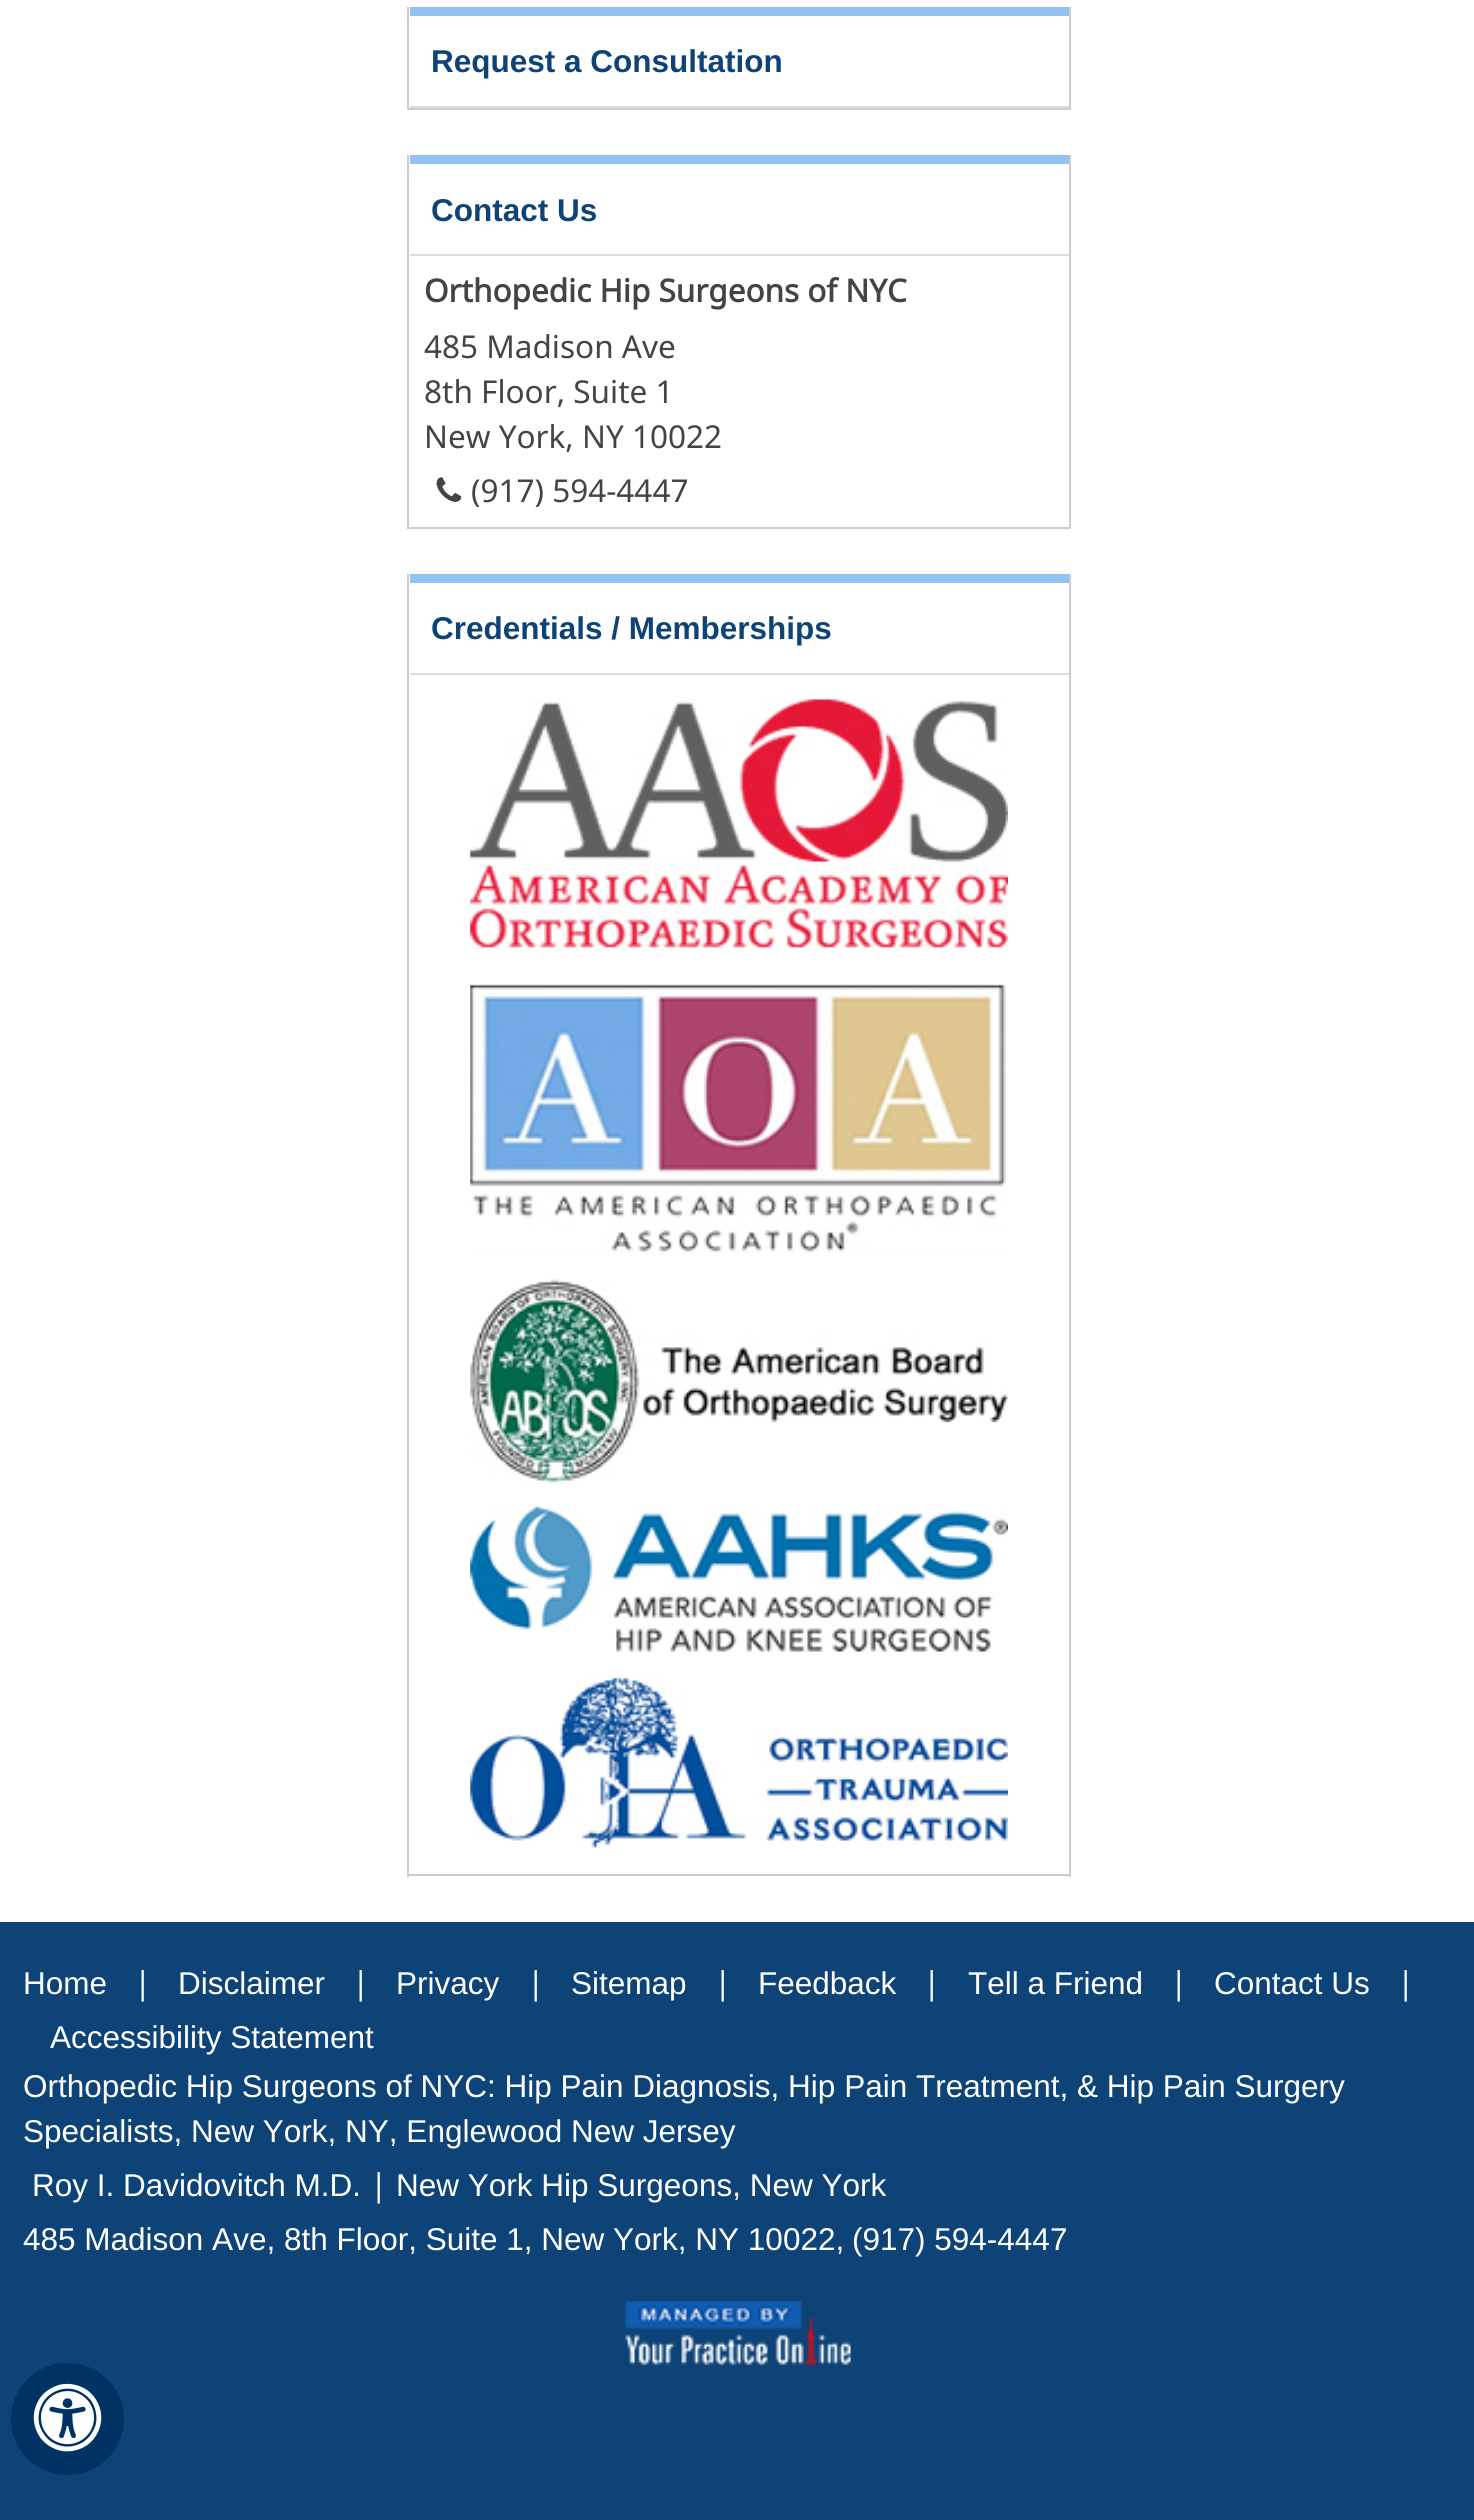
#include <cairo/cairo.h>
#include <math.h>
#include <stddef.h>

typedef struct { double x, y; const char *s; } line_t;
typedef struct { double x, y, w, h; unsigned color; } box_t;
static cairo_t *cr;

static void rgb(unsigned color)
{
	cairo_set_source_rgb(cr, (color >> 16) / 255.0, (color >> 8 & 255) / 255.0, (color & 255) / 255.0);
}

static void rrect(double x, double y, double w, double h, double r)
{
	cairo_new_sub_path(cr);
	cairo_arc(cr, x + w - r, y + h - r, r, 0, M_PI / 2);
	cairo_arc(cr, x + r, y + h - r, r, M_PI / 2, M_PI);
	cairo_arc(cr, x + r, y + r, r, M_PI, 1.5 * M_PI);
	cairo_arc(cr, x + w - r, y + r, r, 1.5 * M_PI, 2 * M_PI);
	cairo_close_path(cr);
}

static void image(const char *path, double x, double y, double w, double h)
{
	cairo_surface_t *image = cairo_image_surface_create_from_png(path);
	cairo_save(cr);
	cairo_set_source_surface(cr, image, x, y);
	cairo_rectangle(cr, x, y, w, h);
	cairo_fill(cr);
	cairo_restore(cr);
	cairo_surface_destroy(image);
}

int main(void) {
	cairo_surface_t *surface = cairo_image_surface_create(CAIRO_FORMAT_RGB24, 1474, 2520);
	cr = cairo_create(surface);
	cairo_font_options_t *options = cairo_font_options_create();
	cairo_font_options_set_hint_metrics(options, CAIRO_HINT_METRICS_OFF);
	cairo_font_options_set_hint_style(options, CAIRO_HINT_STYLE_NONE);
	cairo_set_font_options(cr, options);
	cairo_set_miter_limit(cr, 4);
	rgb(0xffffff);
	cairo_paint(cr);
	{
		static const box_t items[] = {
			{1069, 7, 2, 103, 0xcccccc},
			{407, 108, 664, 2, 0xcccccc},
			{407, 7, 2, 103, 0xcccccc},
			{410, 7, 659, 9, 0x91c2f2},
			{410, 106, 659, 2, 0xdddddd},
			{1069, 155, 2, 374, 0xcccccc},
			{407, 527, 664, 2, 0xcccccc},
			{407, 155, 2, 374, 0xcccccc},
			{410, 155, 659, 9, 0x91c2f2},
			{410, 254, 659, 2, 0xdddddd},
		};
		for (size_t i = 0; i < sizeof items / sizeof *items; i++) {
			rgb(items[i].color);
			cairo_rectangle(cr, items[i].x, items[i].y, items[i].w, items[i].h);
			cairo_fill(cr);
		}
	}
	image("img/1.png", 436, 477, 26, 25);
	{
		static const box_t items[] = {
			{1069, 574, 2, 1303, 0xcccccc},
			{407, 1874, 664, 2, 0xcccccc},
			{407, 574, 2, 1303, 0xcccccc},
			{410, 574, 659, 9, 0x91c2f2},
			{410, 673, 659, 2, 0xdddddd},
		};
		for (size_t i = 0; i < sizeof items / sizeof *items; i++) {
			rgb(items[i].color);
			cairo_rectangle(cr, items[i].x, items[i].y, items[i].w, items[i].h);
			cairo_fill(cr);
		}
	}
	image("img/2.png", 470, 699, 538, 249);
	image("img/3.png", 470, 984, 536, 269);
	image("img/4.png", 470, 1279, 538, 204);
	image("img/5.png", 470, 1506, 538, 146);
	image("img/6.png", 470, 1677, 538, 171);
	rgb(0x0e4377);
	cairo_rectangle(cr, 0, 1922, 1474, 598);
	cairo_fill(cr);
	image("img/7.png", 625, 2301, 226, 66);
	rgb(0x003263);
	rrect(11, 2363, 113, 112, 56);
	cairo_fill(cr);
	image("img/8.png", 33, 2383, 69, 69);
	cairo_select_font_face(cr, "Liberation Sans", CAIRO_FONT_SLANT_NORMAL, CAIRO_FONT_WEIGHT_BOLD);
	cairo_set_font_size(cr, 31.5);
	rgb(0x0e4377);
	cairo_move_to(cr, 431, 72);
	cairo_show_text(cr, "Request a Consultation");
	cairo_move_to(cr, 431, 221);
	cairo_show_text(cr, "Contact Us");
	cairo_select_font_face(cr, "Noto Sans", CAIRO_FONT_SLANT_NORMAL, CAIRO_FONT_WEIGHT_BOLD);
	rgb(0x444444);
	cairo_move_to(cr, 424, 302);
	cairo_show_text(cr, "Orthopedic Hip Surgeons of NYC");
	cairo_select_font_face(cr, "Noto Sans", CAIRO_FONT_SLANT_NORMAL, CAIRO_FONT_WEIGHT_NORMAL);
	{
		static const line_t items[] = {
			{424, 358, "485 Madison Ave"},
			{424, 403, "8th Floor, Suite 1"},
			{424, 448, "New York, NY 10022"},
			{471, 502, "(917) 594-4447"},
		};
		for (size_t i = 0; i < sizeof items / sizeof *items; i++) {
			cairo_move_to(cr, items[i].x, items[i].y);
			cairo_show_text(cr, items[i].s);
		}
	}
	cairo_select_font_face(cr, "Liberation Sans", CAIRO_FONT_SLANT_NORMAL, CAIRO_FONT_WEIGHT_BOLD);
	rgb(0x0e4377);
	cairo_move_to(cr, 431, 639);
	cairo_show_text(cr, "Credentials / Memberships");
	cairo_select_font_face(cr, "Liberation Sans", CAIRO_FONT_SLANT_NORMAL, CAIRO_FONT_WEIGHT_NORMAL);
	rgb(0xffffff);
	cairo_move_to(cr, 23, 1994);
	cairo_show_text(cr, "Home");
	cairo_select_font_face(cr, "Noto Sans", CAIRO_FONT_SLANT_NORMAL, CAIRO_FONT_WEIGHT_NORMAL);
	cairo_move_to(cr, 134, 1994);
	cairo_show_text(cr, "|");
	cairo_select_font_face(cr, "Liberation Sans", CAIRO_FONT_SLANT_NORMAL, CAIRO_FONT_WEIGHT_NORMAL);
	cairo_move_to(cr, 178, 1994);
	cairo_show_text(cr, "Disclaimer");
	cairo_select_font_face(cr, "Noto Sans", CAIRO_FONT_SLANT_NORMAL, CAIRO_FONT_WEIGHT_NORMAL);
	cairo_move_to(cr, 352, 1994);
	cairo_show_text(cr, "|");
	cairo_select_font_face(cr, "Liberation Sans", CAIRO_FONT_SLANT_NORMAL, CAIRO_FONT_WEIGHT_NORMAL);
	cairo_move_to(cr, 396, 1994);
	cairo_show_text(cr, "Privacy");
	cairo_select_font_face(cr, "Noto Sans", CAIRO_FONT_SLANT_NORMAL, CAIRO_FONT_WEIGHT_NORMAL);
	cairo_move_to(cr, 527, 1994);
	cairo_show_text(cr, "|");
	cairo_select_font_face(cr, "Liberation Sans", CAIRO_FONT_SLANT_NORMAL, CAIRO_FONT_WEIGHT_NORMAL);
	cairo_move_to(cr, 571, 1994);
	cairo_show_text(cr, "Sitemap");
	cairo_select_font_face(cr, "Noto Sans", CAIRO_FONT_SLANT_NORMAL, CAIRO_FONT_WEIGHT_NORMAL);
	cairo_move_to(cr, 714, 1994);
	cairo_show_text(cr, "|");
	cairo_select_font_face(cr, "Liberation Sans", CAIRO_FONT_SLANT_NORMAL, CAIRO_FONT_WEIGHT_NORMAL);
	cairo_move_to(cr, 758, 1994);
	cairo_show_text(cr, "Feedback");
	cairo_select_font_face(cr, "Noto Sans", CAIRO_FONT_SLANT_NORMAL, CAIRO_FONT_WEIGHT_NORMAL);
	cairo_move_to(cr, 923, 1994);
	cairo_show_text(cr, "|");
	cairo_select_font_face(cr, "Liberation Sans", CAIRO_FONT_SLANT_NORMAL, CAIRO_FONT_WEIGHT_NORMAL);
	cairo_move_to(cr, 968, 1994);
	cairo_show_text(cr, "Tell a Friend");
	cairo_select_font_face(cr, "Noto Sans", CAIRO_FONT_SLANT_NORMAL, CAIRO_FONT_WEIGHT_NORMAL);
	cairo_move_to(cr, 1170, 1994);
	cairo_show_text(cr, "|");
	cairo_select_font_face(cr, "Liberation Sans", CAIRO_FONT_SLANT_NORMAL, CAIRO_FONT_WEIGHT_NORMAL);
	cairo_move_to(cr, 1214, 1994);
	cairo_show_text(cr, "Contact Us");
	cairo_select_font_face(cr, "Noto Sans", CAIRO_FONT_SLANT_NORMAL, CAIRO_FONT_WEIGHT_NORMAL);
	cairo_move_to(cr, 1397, 1994);
	cairo_show_text(cr, "|");
	cairo_select_font_face(cr, "Liberation Sans", CAIRO_FONT_SLANT_NORMAL, CAIRO_FONT_WEIGHT_NORMAL);
	{
		static const line_t items[] = {
			{50, 2048, "Accessibility Statement"},
			{23, 2097, "Orthopedic Hip Surgeons of NYC: Hip Pain Diagnosis, Hip Pain Treatment, & Hip Pain Surgery"},
			{23, 2142, "Specialists, New York, NY, Englewood New Jersey"},
			{32, 2196, "Roy I. Davidovitch M.D."},
		};
		for (size_t i = 0; i < sizeof items / sizeof *items; i++) {
			cairo_move_to(cr, items[i].x, items[i].y);
			cairo_show_text(cr, items[i].s);
		}
	}
	cairo_select_font_face(cr, "Noto Sans", CAIRO_FONT_SLANT_NORMAL, CAIRO_FONT_WEIGHT_NORMAL);
	cairo_move_to(cr, 370, 2196);
	cairo_show_text(cr, "|");
	cairo_select_font_face(cr, "Liberation Sans", CAIRO_FONT_SLANT_NORMAL, CAIRO_FONT_WEIGHT_NORMAL);
	{
		static const line_t items[] = {
			{396, 2196, "New York Hip Surgeons, New York"},
			{23, 2250, "485 Madison Ave, 8th Floor, Suite 1, New York, NY 10022,"},
			{852, 2250, "(917) 594-4447"},
		};
		for (size_t i = 0; i < sizeof items / sizeof *items; i++) {
			cairo_move_to(cr, items[i].x, items[i].y);
			cairo_show_text(cr, items[i].s);
		}
	}
	cairo_surface_write_to_png(surface, "page.png");
	cairo_font_options_destroy(options);
	cairo_destroy(cr);
	cairo_surface_destroy(surface);
	return 0;
}
